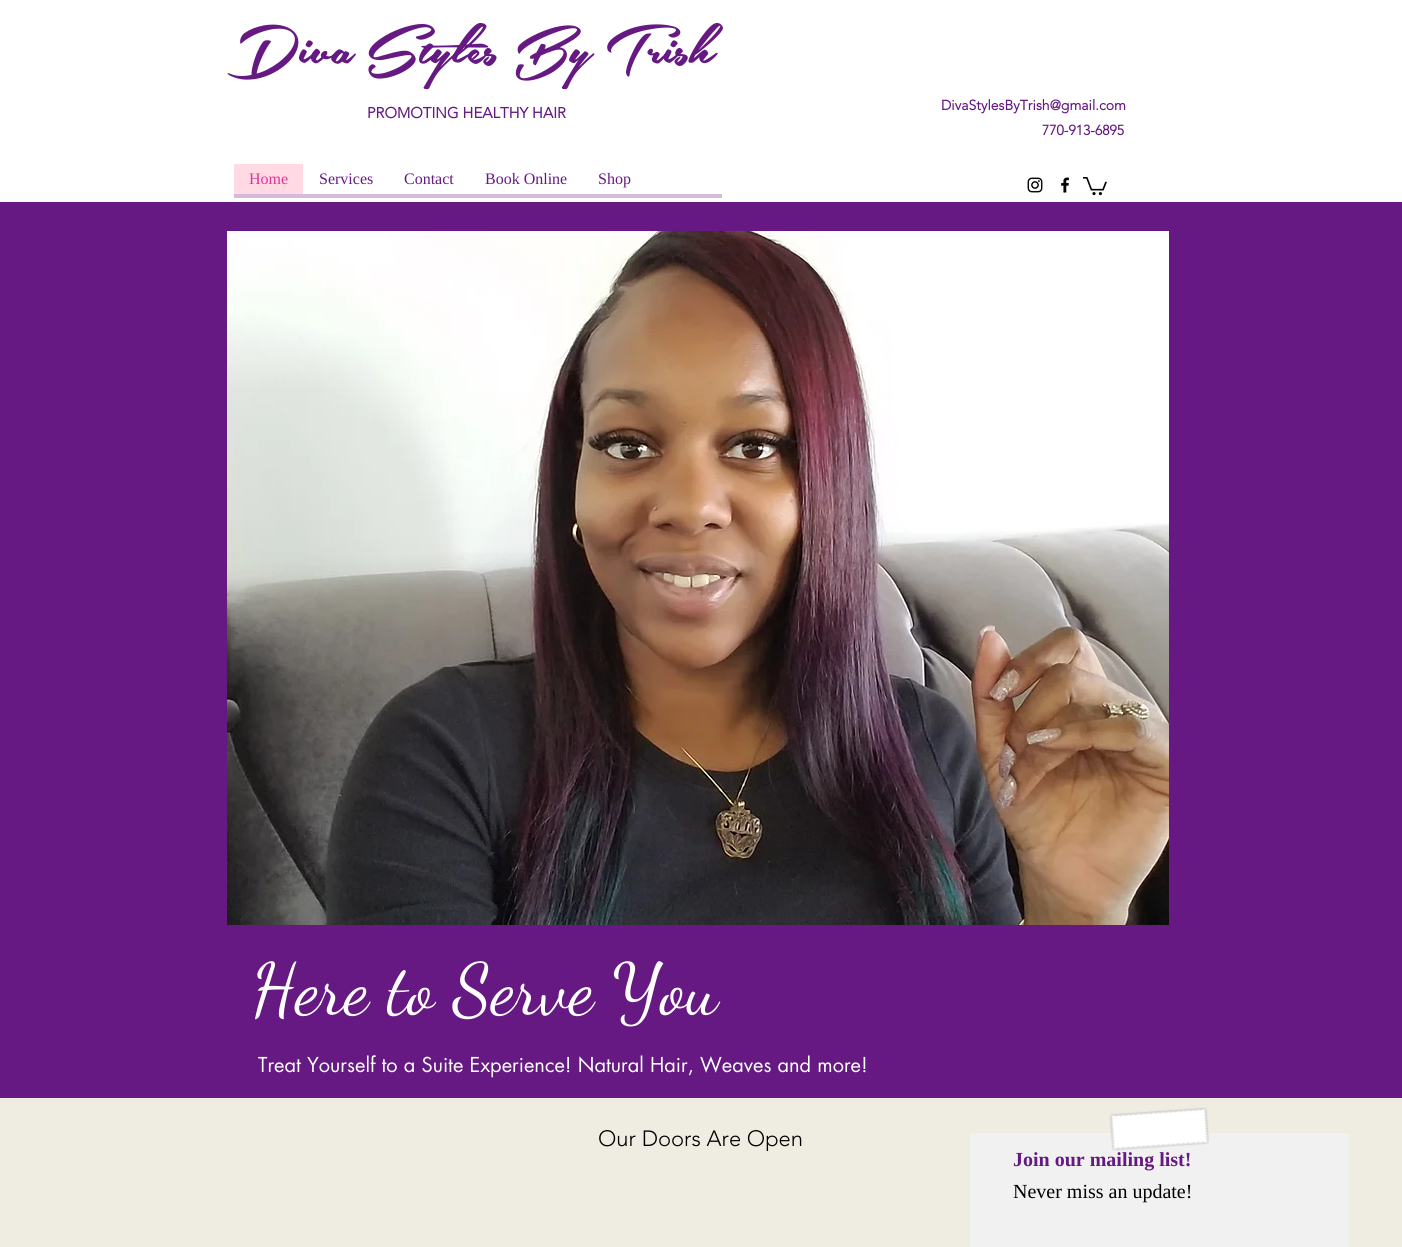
#include <cairo/cairo.h>
#include <math.h>
#include <stddef.h>

typedef struct { double x, y; const char *s; } line_t;
static cairo_t *cr;

static void rgb(unsigned color)
{
	cairo_set_source_rgb(cr, (color >> 16) / 255.0, (color >> 8 & 255) / 255.0, (color & 255) / 255.0);
}

static void image(const char *path, double x, double y, double w, double h)
{
	cairo_surface_t *image = cairo_image_surface_create_from_png(path);
	cairo_save(cr);
	cairo_set_source_surface(cr, image, x, y);
	cairo_rectangle(cr, x, y, w, h);
	cairo_fill(cr);
	cairo_restore(cr);
	cairo_surface_destroy(image);
}

int main(void) {
	cairo_surface_t *surface = cairo_image_surface_create(CAIRO_FORMAT_RGB24, 1402, 1247);
	cr = cairo_create(surface);
	cairo_font_options_t *options = cairo_font_options_create();
	cairo_font_options_set_hint_metrics(options, CAIRO_HINT_METRICS_OFF);
	cairo_font_options_set_hint_style(options, CAIRO_HINT_STYLE_NONE);
	cairo_set_font_options(cr, options);
	cairo_set_miter_limit(cr, 4);
	rgb(0xffffff);
	cairo_paint(cr);
	rgb(0xd3bcdb);
	cairo_rectangle(cr, 234, 194, 488, 4);
	cairo_fill(cr);
	rgb(0xffd9e4);
	cairo_rectangle(cr, 234, 164, 69, 30);
	cairo_fill(cr);
	image("img/1.png", 1027, 177, 16, 16);
	image("img/2.png", 1061, 177, 9, 16);
	image("img/3.png", 1083, 177, 24, 19);
	rgb(0x661982);
	cairo_rectangle(cr, 0, 202, 1402, 896);
	cairo_fill(cr);
	image("img/4.png", 227, 231, 942, 694);
	rgb(0xefece2);
	cairo_rectangle(cr, 0, 1098, 1402, 149);
	cairo_fill(cr);
	rgb(0xf1f1f1);
	cairo_rectangle(cr, 970, 1133, 379, 114);
	cairo_fill(cr);
	image("img/5.png", 1109, 1107, 100, 44);
	cairo_select_font_face(cr, "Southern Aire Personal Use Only", CAIRO_FONT_SLANT_NORMAL, CAIRO_FONT_WEIGHT_NORMAL);
	cairo_set_font_size(cr, 72);
	rgb(0x661982);
	cairo_move_to(cr, 227, 72);
	cairo_show_text(cr, "Diva Styles By Trish");
	cairo_select_font_face(cr, "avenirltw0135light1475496", CAIRO_FONT_SLANT_NORMAL, CAIRO_FONT_WEIGHT_BOLD);
	cairo_set_font_size(cr, 15);
	cairo_move_to(cr, 367, 118);
	cairo_show_text(cr, "PROMOTING HEALTHY HAIR");
	cairo_set_font_size(cr, 14);
	cairo_move_to(cr, 941, 110);
	cairo_show_text(cr, "DivaStylesByTrish@gmail.com");
	cairo_move_to(cr, 1042, 135);
	cairo_show_text(cr, "770-913-6895");
	cairo_select_font_face(cr, "Liberation Serif", CAIRO_FONT_SLANT_NORMAL, CAIRO_FONT_WEIGHT_NORMAL);
	cairo_set_font_size(cr, 16);
	rgb(0xe33292);
	cairo_move_to(cr, 249, 184);
	cairo_show_text(cr, "Home");
	rgb(0x661982);
	{
		static const line_t items[] = {
			{319, 184, "Services"},
			{404, 184, "Contact"},
			{485, 184, "Book Online"},
			{598, 184, "Shop"},
		};
		for (size_t i = 0; i < sizeof items / sizeof *items; i++) {
			cairo_move_to(cr, items[i].x, items[i].y);
			cairo_show_text(cr, items[i].s);
		}
	}
	cairo_select_font_face(cr, "Dancing Script", CAIRO_FONT_SLANT_NORMAL, CAIRO_FONT_WEIGHT_NORMAL);
	cairo_set_font_size(cr, 72);
	rgb(0xffffff);
	cairo_move_to(cr, 251, 1013);
	cairo_show_text(cr, "Here to Serve You");
	cairo_select_font_face(cr, "futura", CAIRO_FONT_SLANT_NORMAL, CAIRO_FONT_WEIGHT_NORMAL);
	cairo_set_font_size(cr, 20);
	cairo_move_to(cr, 258, 1072);
	cairo_show_text(cr, "Treat Yourself to a Suite Experience! Natural Hair, Weaves and more!");
	cairo_select_font_face(cr, "avenirltw0135light1475496 Light", CAIRO_FONT_SLANT_NORMAL, CAIRO_FONT_WEIGHT_NORMAL);
	cairo_set_font_size(cr, 22);
	rgb(0x000000);
	cairo_move_to(cr, 598, 1146);
	cairo_show_text(cr, "Our Doors Are Open");
	cairo_select_font_face(cr, "Liberation Serif", CAIRO_FONT_SLANT_NORMAL, CAIRO_FONT_WEIGHT_BOLD);
	cairo_set_font_size(cr, 20);
	rgb(0x661982);
	cairo_move_to(cr, 1013, 1166);
	cairo_show_text(cr, "Join our mailing list!");
	cairo_select_font_face(cr, "Liberation Serif", CAIRO_FONT_SLANT_NORMAL, CAIRO_FONT_WEIGHT_NORMAL);
	rgb(0x000000);
	cairo_move_to(cr, 1013, 1198);
	cairo_show_text(cr, "Never miss an update!");
	cairo_surface_write_to_png(surface, "page.png");
	cairo_font_options_destroy(options);
	cairo_destroy(cr);
	cairo_surface_destroy(surface);
	return 0;
}
